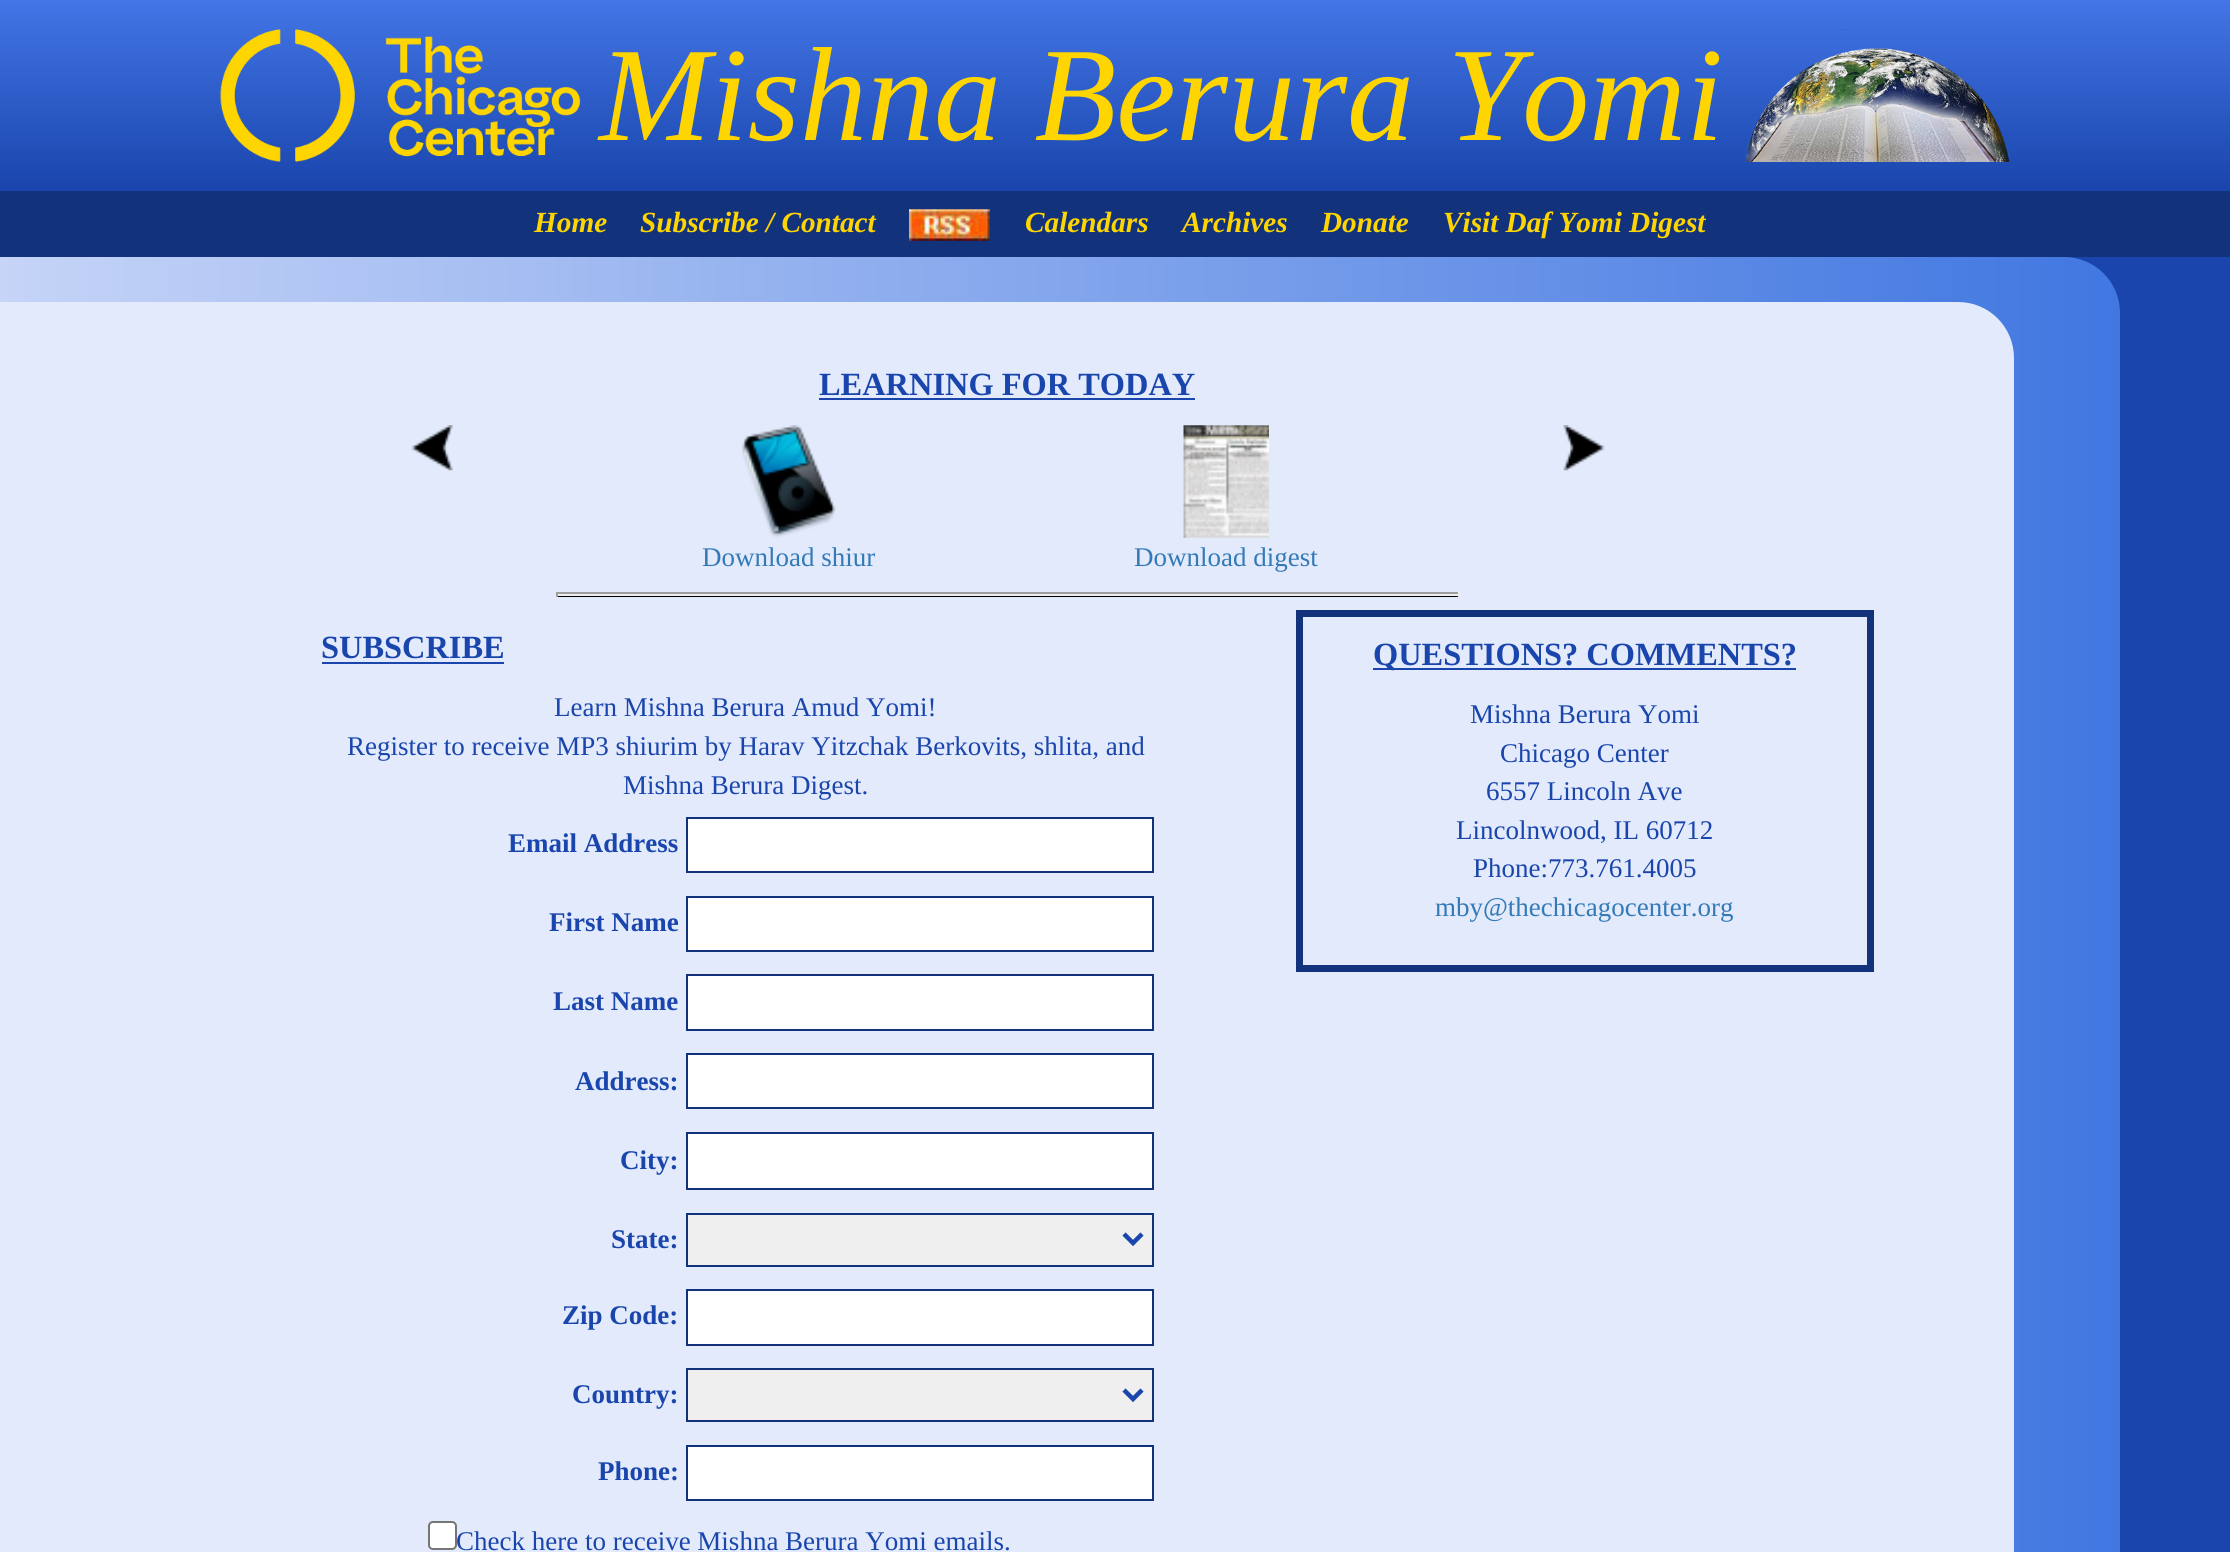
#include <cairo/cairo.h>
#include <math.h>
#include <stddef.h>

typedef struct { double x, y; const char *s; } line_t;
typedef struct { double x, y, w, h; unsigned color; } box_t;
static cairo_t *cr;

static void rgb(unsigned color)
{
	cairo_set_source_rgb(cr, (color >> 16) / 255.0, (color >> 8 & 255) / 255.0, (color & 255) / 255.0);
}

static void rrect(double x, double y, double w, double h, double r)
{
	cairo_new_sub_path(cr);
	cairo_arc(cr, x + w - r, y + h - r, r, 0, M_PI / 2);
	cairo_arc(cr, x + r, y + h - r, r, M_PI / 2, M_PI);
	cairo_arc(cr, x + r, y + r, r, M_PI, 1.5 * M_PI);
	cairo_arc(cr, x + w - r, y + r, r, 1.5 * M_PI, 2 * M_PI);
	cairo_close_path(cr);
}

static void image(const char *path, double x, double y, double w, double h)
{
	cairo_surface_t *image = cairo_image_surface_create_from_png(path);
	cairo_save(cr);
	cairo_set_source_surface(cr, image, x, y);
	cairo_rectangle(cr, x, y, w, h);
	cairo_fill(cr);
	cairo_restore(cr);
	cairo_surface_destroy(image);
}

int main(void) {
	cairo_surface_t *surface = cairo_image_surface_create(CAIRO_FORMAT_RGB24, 2230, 1552);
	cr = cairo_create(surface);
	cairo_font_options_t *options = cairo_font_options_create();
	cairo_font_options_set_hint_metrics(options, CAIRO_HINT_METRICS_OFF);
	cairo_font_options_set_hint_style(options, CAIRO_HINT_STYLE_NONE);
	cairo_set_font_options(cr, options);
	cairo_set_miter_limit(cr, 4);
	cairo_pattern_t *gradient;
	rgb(0x1945ac);
	cairo_paint(cr);
	gradient = cairo_pattern_create_linear(1116, 0, 1116, 191);
	cairo_pattern_add_color_stop_rgba(gradient, 0, 0.263, 0.459, 0.902, 1);
	cairo_pattern_add_color_stop_rgba(gradient, 1, 0.098, 0.271, 0.675, 1);
	cairo_set_source(cr, gradient);
	cairo_pattern_destroy(gradient);
	cairo_rectangle(cr, 0, 0, 2230, 183);
	cairo_fill(cr);
	image("img/1.png", 220, 29, 361, 133);
	image("img/2.png", 1745, 29, 265, 133);
	rgb(0x12327c);
	cairo_rectangle(cr, 0, 191, 2230, 66);
	cairo_fill(cr);
	image("img/3.png", 909, 209, 81, 32);
	gradient = cairo_pattern_create_linear(0, 1131, 2120, 1131);
	cairo_pattern_add_color_stop_rgba(gradient, 0, 0.773, 0.831, 0.969, 1);
	cairo_pattern_add_color_stop_rgba(gradient, 1, 0.255, 0.467, 0.882, 1);
	cairo_set_source(cr, gradient);
	cairo_pattern_destroy(gradient);
	cairo_new_path(cr);
	cairo_move_to(cr, 0, 257);
	cairo_line_to(cr, 2064, 257);
	cairo_curve_to(cr, 2095, 257, 2120, 282, 2120, 313);
	cairo_line_to(cr, 2120, 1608);
	cairo_line_to(cr, 0, 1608);
	cairo_close_path(cr);
	cairo_fill(cr);
	rgb(0xe2eafc);
	cairo_new_path(cr);
	cairo_move_to(cr, 0, 302);
	cairo_line_to(cr, 1958, 302);
	cairo_curve_to(cr, 1989, 302, 2014, 327, 2014, 358);
	cairo_line_to(cr, 2014, 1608);
	cairo_line_to(cr, 0, 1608);
	cairo_close_path(cr);
	cairo_fill(cr);
	rgb(0x1945ac);
	cairo_rectangle(cr, 819, 398, 376, 2);
	cairo_fill(cr);
	image("img/4.png", 411, 425, 42, 46);
	image("img/5.png", 1563, 425, 42, 46);
	image("img/6.png", 742, 425, 94, 113);
	image("img/7.png", 1183, 425, 86, 113);
	{
		static const box_t items[] = {
			{556, 596, 904, 1, 0x000000},
			{556, 592, 904, 2, 0x9f9f9f},
			{1458, 592, 2, 5, 0xeeeeee},
			{556, 594, 904, 2, 0xeeeeee},
			{556, 592, 2, 5, 0x9f9f9f},
			{322, 662, 182, 2, 0x1945ac},
		};
		for (size_t i = 0; i < sizeof items / sizeof *items; i++) {
			rgb(items[i].color);
			cairo_rectangle(cr, items[i].x, items[i].y, items[i].w, items[i].h);
			cairo_fill(cr);
		}
	}
	rgb(0xffffff);
	cairo_rectangle(cr, 687, 818, 466, 54);
	cairo_fill_preserve(cr);
	rgb(0x12327c);
	cairo_stroke(cr);
	rgb(0xffffff);
	cairo_rectangle(cr, 687, 897, 466, 54);
	cairo_fill_preserve(cr);
	rgb(0x12327c);
	cairo_stroke(cr);
	rgb(0xffffff);
	cairo_rectangle(cr, 687, 975, 466, 55);
	cairo_fill_preserve(cr);
	rgb(0x12327c);
	cairo_stroke(cr);
	rgb(0xffffff);
	cairo_rectangle(cr, 687, 1054, 466, 54);
	cairo_fill_preserve(cr);
	rgb(0x12327c);
	cairo_stroke(cr);
	rgb(0xffffff);
	cairo_rectangle(cr, 687, 1133, 466, 56);
	cairo_fill_preserve(cr);
	rgb(0x12327c);
	cairo_stroke(cr);
	rgb(0xefefef);
	cairo_rectangle(cr, 687, 1214, 466, 52);
	cairo_fill_preserve(cr);
	rgb(0x12327c);
	cairo_stroke(cr);
	cairo_new_path(cr);
	cairo_move_to(cr, 1124, 1234);
	cairo_line_to(cr, 1133, 1243);
	cairo_line_to(cr, 1142, 1234);
	rgb(0x1945ac);
	cairo_set_line_width(cr, 4.5);
	cairo_stroke(cr);
	rgb(0xffffff);
	cairo_rectangle(cr, 687, 1290, 466, 55);
	cairo_fill_preserve(cr);
	rgb(0x12327c);
	cairo_set_line_width(cr, 2);
	cairo_stroke(cr);
	rgb(0xefefef);
	cairo_rectangle(cr, 687, 1369, 466, 52);
	cairo_fill_preserve(cr);
	rgb(0x12327c);
	cairo_stroke(cr);
	cairo_new_path(cr);
	cairo_move_to(cr, 1124, 1390);
	cairo_line_to(cr, 1133, 1399);
	cairo_line_to(cr, 1142, 1390);
	rgb(0x1945ac);
	cairo_set_line_width(cr, 4.5);
	cairo_stroke(cr);
	rgb(0xffffff);
	cairo_rectangle(cr, 687, 1446, 466, 54);
	cairo_fill_preserve(cr);
	rgb(0x12327c);
	cairo_set_line_width(cr, 2);
	cairo_stroke(cr);
	rgb(0xffffff);
	rrect(429, 1522, 27, 27, 4);
	cairo_fill_preserve(cr);
	rgb(0x767676);
	cairo_stroke(cr);
	cairo_rectangle(cr, 1299.5, 613.5, 571, 355);
	rgb(0x12327c);
	cairo_set_line_width(cr, 7);
	cairo_stroke(cr);
	rgb(0x1945ac);
	cairo_rectangle(cr, 1373, 668, 423, 2);
	cairo_fill(cr);
	cairo_select_font_face(cr, "Liberation Serif", CAIRO_FONT_SLANT_ITALIC, CAIRO_FONT_WEIGHT_NORMAL);
	cairo_set_font_size(cr, 134);
	rgb(0xfed500);
	cairo_move_to(cr, 599, 140);
	cairo_show_text(cr, "Mishna Berura Yomi");
	cairo_select_font_face(cr, "Liberation Serif", CAIRO_FONT_SLANT_ITALIC, CAIRO_FONT_WEIGHT_BOLD);
	cairo_set_font_size(cr, 29.25);
	{
		static const line_t items[] = {
			{534, 232, "Home"},
			{640, 232, "Subscribe / Contact"},
			{1025, 232, "Calendars"},
			{1182, 232, "Archives"},
			{1321, 232, "Donate"},
			{1443, 232, "Visit Daf Yomi Digest"},
		};
		for (size_t i = 0; i < sizeof items / sizeof *items; i++) {
			cairo_move_to(cr, items[i].x, items[i].y);
			cairo_show_text(cr, items[i].s);
		}
	}
	cairo_select_font_face(cr, "Liberation Serif", CAIRO_FONT_SLANT_NORMAL, CAIRO_FONT_WEIGHT_BOLD);
	cairo_set_font_size(cr, 32.4);
	rgb(0x1945ac);
	cairo_move_to(cr, 819, 395);
	cairo_show_text(cr, "LEARNING FOR TODAY");
	cairo_select_font_face(cr, "Liberation Serif", CAIRO_FONT_SLANT_NORMAL, CAIRO_FONT_WEIGHT_NORMAL);
	cairo_set_font_size(cr, 27);
	rgb(0x337ab7);
	cairo_move_to(cr, 702, 566);
	cairo_show_text(cr, "Download shiur");
	cairo_move_to(cr, 1134, 566);
	cairo_show_text(cr, "Download digest");
	cairo_select_font_face(cr, "Liberation Serif", CAIRO_FONT_SLANT_NORMAL, CAIRO_FONT_WEIGHT_BOLD);
	cairo_set_font_size(cr, 32.4);
	rgb(0x1945ac);
	cairo_move_to(cr, 321, 658);
	cairo_show_text(cr, "SUBSCRIBE");
	cairo_select_font_face(cr, "Liberation Serif", CAIRO_FONT_SLANT_NORMAL, CAIRO_FONT_WEIGHT_NORMAL);
	cairo_set_font_size(cr, 27);
	{
		static const line_t items[] = {
			{554, 716, "Learn Mishna Berura Amud Yomi!"},
			{347, 755, "Register to receive MP3 shiurim by Harav Yitzchak Berkovits, shlita, and"},
			{623, 794, "Mishna Berura Digest."},
		};
		for (size_t i = 0; i < sizeof items / sizeof *items; i++) {
			cairo_move_to(cr, items[i].x, items[i].y);
			cairo_show_text(cr, items[i].s);
		}
	}
	cairo_select_font_face(cr, "Liberation Serif", CAIRO_FONT_SLANT_NORMAL, CAIRO_FONT_WEIGHT_BOLD);
	{
		static const line_t items[] = {
			{508, 852, "Email Address"},
			{549, 931, "First Name"},
			{553, 1010, "Last Name"},
			{575, 1090, "Address:"},
			{620, 1169, "City:"},
			{611, 1248, "State:"},
			{562, 1324, "Zip Code:"},
			{572, 1403, "Country:"},
			{598, 1480, "Phone:"},
		};
		for (size_t i = 0; i < sizeof items / sizeof *items; i++) {
			cairo_move_to(cr, items[i].x, items[i].y);
			cairo_show_text(cr, items[i].s);
		}
	}
	cairo_select_font_face(cr, "Liberation Serif", CAIRO_FONT_SLANT_NORMAL, CAIRO_FONT_WEIGHT_NORMAL);
	cairo_move_to(cr, 456, 1550);
	cairo_show_text(cr, "Check here to receive Mishna Berura Yomi emails.");
	cairo_select_font_face(cr, "Liberation Serif", CAIRO_FONT_SLANT_NORMAL, CAIRO_FONT_WEIGHT_BOLD);
	cairo_set_font_size(cr, 32.4);
	cairo_move_to(cr, 1373, 665);
	cairo_show_text(cr, "QUESTIONS? COMMENTS?");
	cairo_select_font_face(cr, "Liberation Serif", CAIRO_FONT_SLANT_NORMAL, CAIRO_FONT_WEIGHT_NORMAL);
	cairo_set_font_size(cr, 27);
	{
		static const line_t items[] = {
			{1470, 723, "Mishna Berura Yomi"},
			{1500, 762, "Chicago Center"},
			{1486, 800, "6557 Lincoln Ave"},
			{1456, 839, "Lincolnwood, IL 60712"},
			{1473, 877, "Phone:773.761.4005"},
		};
		for (size_t i = 0; i < sizeof items / sizeof *items; i++) {
			cairo_move_to(cr, items[i].x, items[i].y);
			cairo_show_text(cr, items[i].s);
		}
	}
	rgb(0x337ab7);
	cairo_move_to(cr, 1435, 916);
	cairo_show_text(cr, "mby@thechicagocenter.org");
	cairo_surface_write_to_png(surface, "page.png");
	cairo_font_options_destroy(options);
	cairo_destroy(cr);
	cairo_surface_destroy(surface);
	return 0;
}
